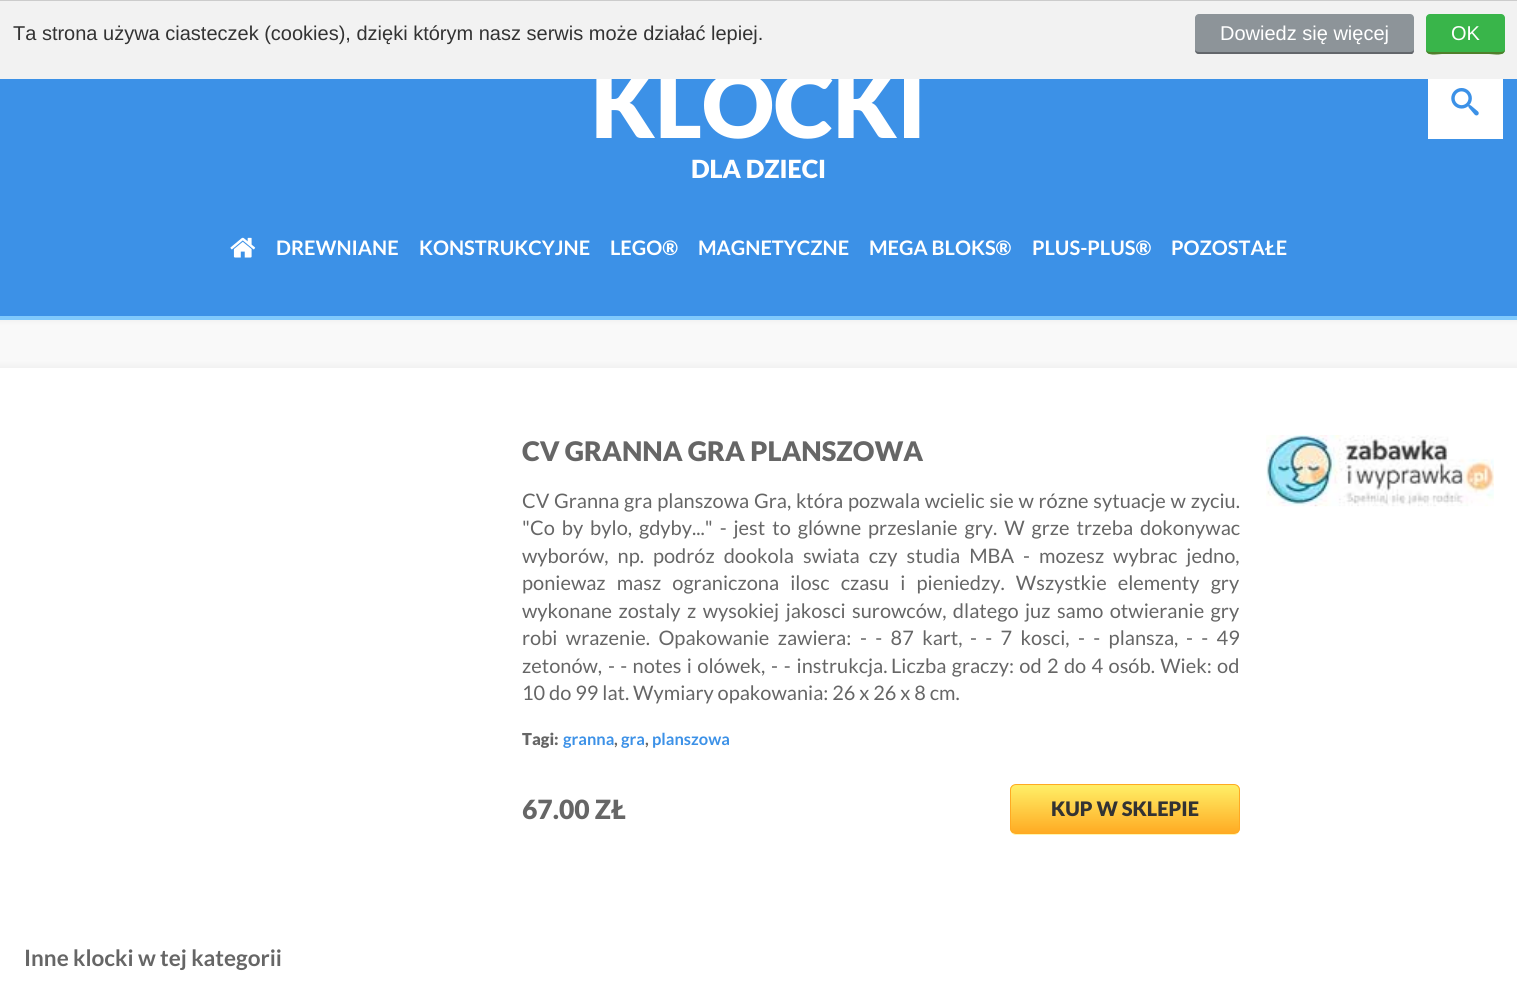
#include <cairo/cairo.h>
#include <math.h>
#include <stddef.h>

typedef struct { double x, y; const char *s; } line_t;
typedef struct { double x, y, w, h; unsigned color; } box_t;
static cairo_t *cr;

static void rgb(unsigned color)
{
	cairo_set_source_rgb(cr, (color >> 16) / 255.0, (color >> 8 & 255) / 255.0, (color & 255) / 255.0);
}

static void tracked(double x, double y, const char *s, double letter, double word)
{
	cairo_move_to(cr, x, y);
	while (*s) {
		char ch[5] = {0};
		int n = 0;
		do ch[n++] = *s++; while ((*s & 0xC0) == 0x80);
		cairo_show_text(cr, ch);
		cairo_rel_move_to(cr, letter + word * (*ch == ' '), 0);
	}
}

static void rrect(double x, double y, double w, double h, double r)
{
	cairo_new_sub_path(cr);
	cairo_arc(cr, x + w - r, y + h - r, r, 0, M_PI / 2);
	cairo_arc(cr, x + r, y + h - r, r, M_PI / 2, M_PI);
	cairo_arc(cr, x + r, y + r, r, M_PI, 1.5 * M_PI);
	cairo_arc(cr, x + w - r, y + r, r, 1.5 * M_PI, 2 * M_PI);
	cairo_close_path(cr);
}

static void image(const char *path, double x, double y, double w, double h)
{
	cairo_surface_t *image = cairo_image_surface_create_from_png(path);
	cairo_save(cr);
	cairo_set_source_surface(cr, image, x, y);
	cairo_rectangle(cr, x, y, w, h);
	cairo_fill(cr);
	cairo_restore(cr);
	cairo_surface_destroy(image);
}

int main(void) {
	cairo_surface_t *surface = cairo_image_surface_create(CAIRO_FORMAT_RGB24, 1517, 1001);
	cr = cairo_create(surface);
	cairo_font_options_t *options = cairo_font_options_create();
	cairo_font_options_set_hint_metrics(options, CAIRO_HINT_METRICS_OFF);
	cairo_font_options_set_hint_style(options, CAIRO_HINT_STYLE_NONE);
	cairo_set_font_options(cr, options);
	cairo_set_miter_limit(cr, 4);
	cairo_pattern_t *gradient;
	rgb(0xffffff);
	cairo_paint(cr);
	{
		static const box_t items[] = {
			{0, 0, 1517, 1, 0xcccccc},
			{0, 79, 1517, 237, 0x3c91e7},
			{0, 316, 1517, 4, 0x80c9fc},
			{1428, 79, 75, 60, 0xffffff},
		};
		for (size_t i = 0; i < sizeof items / sizeof *items; i++) {
			rgb(items[i].color);
			cairo_rectangle(cr, items[i].x, items[i].y, items[i].w, items[i].h);
			cairo_fill(cr);
		}
	}
	image("img/1.png", 1451, 88, 28, 28);
	image("img/2.png", 230, 237, 26, 21);
	gradient = cairo_pattern_create_linear(759, 320, 759, 368);
	cairo_pattern_add_color_stop_rgba(gradient, 0, 0.949, 0.949, 0.949, 1);
	cairo_pattern_add_color_stop_rgba(gradient, 0.1, 0.976, 0.976, 0.976, 1);
	cairo_pattern_add_color_stop_rgba(gradient, 0.85, 0.976, 0.976, 0.976, 1);
	cairo_pattern_add_color_stop_rgba(gradient, 1, 0.949, 0.949, 0.949, 1);
	cairo_set_source(cr, gradient);
	cairo_pattern_destroy(gradient);
	cairo_rectangle(cr, 0, 320, 1517, 48);
	cairo_fill(cr);
	rgb(0xfff6af);
	cairo_new_path(cr);
	cairo_move_to(cr, 1010, 828);
	cairo_curve_to(cr, 1010, 831, 1011, 834, 1015, 835);
	cairo_line_to(cr, 1234, 835);
	cairo_curve_to(cr, 1238, 835, 1240, 831, 1240, 828);
	cairo_curve_to(cr, 1240, 831, 1237, 834, 1234, 834);
	cairo_line_to(cr, 1016, 834);
	cairo_curve_to(cr, 1013, 834, 1010, 831, 1010, 828);
	cairo_close_path(cr);
	cairo_fill(cr);
	cairo_save(cr);
	rrect(1010, 784, 230, 50, 6);
	cairo_clip(cr);
	gradient = cairo_pattern_create_linear(1125, 785, 1125, 833);
	cairo_pattern_add_color_stop_rgba(gradient, 0.05, 1, 0.925, 0.392, 1);
	cairo_pattern_add_color_stop_rgba(gradient, 1, 1, 0.671, 0.137, 1);
	cairo_set_source(cr, gradient);
	cairo_pattern_destroy(gradient);
	cairo_rectangle(cr, 1010, 785, 230, 48);
	cairo_fill(cr);
	cairo_restore(cr);
	rrect(1010.5, 784.5, 229, 49, 5.5);
	rgb(0xffaa22);
	cairo_set_line_width(cr, 1);
	cairo_stroke(cr);
	image("img/3.png", 1266, 435, 228, 72);
	cairo_select_font_face(cr, "Lato Black", CAIRO_FONT_SLANT_NORMAL, CAIRO_FONT_WEIGHT_NORMAL);
	cairo_set_font_size(cr, 90);
	rgb(0xffffff);
	cairo_move_to(cr, 591, 138);
	cairo_show_text(cr, "KLOCKI");
	rgb(0xf2f2f2);
	cairo_rectangle(cr, 0, 1, 1517, 78);
	cairo_fill(cr);
	rgb(0x8d9499);
	rrect(1195, 14, 219, 40, 4);
	cairo_fill(cr);
	cairo_select_font_face(cr, "Liberation Sans", CAIRO_FONT_SLANT_NORMAL, CAIRO_FONT_WEIGHT_NORMAL);
	cairo_set_font_size(cr, 20);
	rgb(0xffffff);
	cairo_move_to(cr, 1220, 40);
	cairo_show_text(cr, "Dowiedz się więcej");
	rgb(0x63666b);
	cairo_new_path(cr);
	cairo_move_to(cr, 1195, 49);
	cairo_curve_to(cr, 1195, 52, 1196, 54, 1199, 54);
	cairo_line_to(cr, 1412, 54);
	cairo_curve_to(cr, 1414, 53, 1414, 51, 1414, 49);
	cairo_curve_to(cr, 1414, 51, 1412, 52, 1410, 52);
	cairo_line_to(cr, 1199, 52);
	cairo_curve_to(cr, 1197, 52, 1195, 51, 1195, 49);
	cairo_close_path(cr);
	cairo_fill(cr);
	rgb(0x39b54a);
	rrect(1426, 14, 79, 40, 4);
	cairo_fill(cr);
	rgb(0xffffff);
	cairo_move_to(cr, 1451, 40);
	cairo_show_text(cr, "OK");
	rgb(0x507f2b);
	cairo_new_path(cr);
	cairo_move_to(cr, 1426, 49);
	cairo_curve_to(cr, 1426, 57, 1437, 54, 1442, 54);
	cairo_line_to(cr, 1489, 54);
	cairo_curve_to(cr, 1494, 54, 1505, 57, 1505, 49);
	cairo_curve_to(cr, 1505, 51, 1503, 52, 1501, 52);
	cairo_line_to(cr, 1430, 52);
	cairo_curve_to(cr, 1428, 52, 1426, 51, 1426, 49);
	cairo_close_path(cr);
	cairo_fill(cr);
	rgb(0x333333);
	cairo_move_to(cr, 13, 40);
	cairo_show_text(cr, "Ta strona używa ciasteczek (cookies), dzięki którym nasz serwis może działać lepiej.");
	cairo_select_font_face(cr, "Lato Black", CAIRO_FONT_SLANT_NORMAL, CAIRO_FONT_WEIGHT_NORMAL);
	cairo_set_font_size(cr, 25);
	rgb(0xffffff);
	cairo_move_to(cr, 691, 178);
	cairo_show_text(cr, "DLA DZIECI");
	cairo_select_font_face(cr, "Lato", CAIRO_FONT_SLANT_NORMAL, CAIRO_FONT_WEIGHT_BOLD);
	cairo_set_font_size(cr, 20);
	{
		static const line_t items[] = {
			{276, 255, "DREWNIANE"},
			{419, 255, "KONSTRUKCYJNE"},
			{610, 255, "LEGO®"},
			{698, 255, "MAGNETYCZNE"},
			{869, 255, "MEGA BLOKS®"},
			{1032, 255, "PLUS-PLUS®"},
			{1171, 255, "POZOSTAŁE"},
		};
		for (size_t i = 0; i < sizeof items / sizeof *items; i++) {
			cairo_move_to(cr, items[i].x, items[i].y);
			cairo_show_text(cr, items[i].s);
		}
	}
	cairo_select_font_face(cr, "Lato Black", CAIRO_FONT_SLANT_NORMAL, CAIRO_FONT_WEIGHT_NORMAL);
	cairo_set_font_size(cr, 27);
	rgb(0x666666);
	cairo_move_to(cr, 522, 461);
	cairo_show_text(cr, "CV GRANNA GRA PLANSZOWA");
	cairo_select_font_face(cr, "Lato", CAIRO_FONT_SLANT_NORMAL, CAIRO_FONT_WEIGHT_NORMAL);
	cairo_set_font_size(cr, 20);
	tracked(522, 508, "CV Granna gra planszowa", 0, 0.9);
	tracked(754, 508, "Gra, która pozwala wcielic sie w rózne sytuacje w zyciu.", 0, 0.9);
	tracked(522, 535, "\"Co by bylo, gdyby...\" - jest to glówne przeslanie gry. W grze trzeba dokonywac", 0, 3.1);
	tracked(522, 563, "wyborów, np. podróz dookola swiata czy studia MBA - mozesz wybrac jedno,", 0, 5.1);
	tracked(522, 590, "poniewaz masz ograniczona ilosc czasu i pieniedzy. Wszystkie elementy gry", 0, 7.25);
	tracked(522, 618, "wykonane zostaly z wysokiej jakosci surowców, dlatego juz samo otwieranie gry", 0, 2.6);
	{
		static const line_t items[] = {
			{522, 645, "robi wrazenie. Opakowanie zawiera:"},
			{860, 645, "- - 87 kart,"},
			{970, 645, "- - 7 kosci,"},
			{1078, 645, "- - plansza,"},
			{1186, 645, "- - 49"},
		};
		for (size_t i = 0; i < sizeof items / sizeof *items; i++) {
			tracked(items[i].x, items[i].y, items[i].s, 0, 4.5);
		}
	}
	cairo_move_to(cr, 522, 673);
	cairo_show_text(cr, "zetonów,");
	tracked(608, 673, "- - notes i olówek,", 0, 1.5);
	tracked(771, 673, "- - instrukcja.", 0, 2);
	tracked(891, 673, "Liczba graczy: od 2 do 4 osób. Wiek: od", 0, 1.5);
	cairo_move_to(cr, 522, 700);
	cairo_show_text(cr, "10 do 99 lat. Wymiary opakowania: 26 x 26 x 8 cm.");
	cairo_select_font_face(cr, "Lato Black", CAIRO_FONT_SLANT_NORMAL, CAIRO_FONT_WEIGHT_NORMAL);
	cairo_set_font_size(cr, 16.5);
	cairo_move_to(cr, 522, 745);
	cairo_show_text(cr, "Tagi:");
	cairo_select_font_face(cr, "Lato", CAIRO_FONT_SLANT_NORMAL, CAIRO_FONT_WEIGHT_BOLD);
	rgb(0x3c91e7);
	cairo_move_to(cr, 563, 745);
	cairo_show_text(cr, "granna");
	rgb(0x666666);
	cairo_move_to(cr, 614, 745);
	cairo_show_text(cr, ",");
	rgb(0x3c91e7);
	cairo_move_to(cr, 621, 745);
	cairo_show_text(cr, "gra");
	rgb(0x666666);
	cairo_move_to(cr, 645, 745);
	cairo_show_text(cr, ",");
	rgb(0x3c91e7);
	cairo_move_to(cr, 652, 745);
	cairo_show_text(cr, "planszowa");
	cairo_select_font_face(cr, "Lato Black", CAIRO_FONT_SLANT_NORMAL, CAIRO_FONT_WEIGHT_NORMAL);
	cairo_set_font_size(cr, 26.5);
	rgb(0x666666);
	cairo_move_to(cr, 522, 819);
	cairo_show_text(cr, "67.00 ZŁ");
	cairo_set_font_size(cr, 20);
	rgb(0x333333);
	cairo_move_to(cr, 1051, 816);
	cairo_show_text(cr, "KUP W SKLEPIE");
	cairo_select_font_face(cr, "Lato", CAIRO_FONT_SLANT_NORMAL, CAIRO_FONT_WEIGHT_BOLD);
	cairo_set_font_size(cr, 22.5);
	rgb(0x666666);
	cairo_move_to(cr, 24, 966);
	cairo_show_text(cr, "Inne klocki w tej kategorii");
	cairo_surface_write_to_png(surface, "page.png");
	cairo_font_options_destroy(options);
	cairo_destroy(cr);
	cairo_surface_destroy(surface);
	return 0;
}
